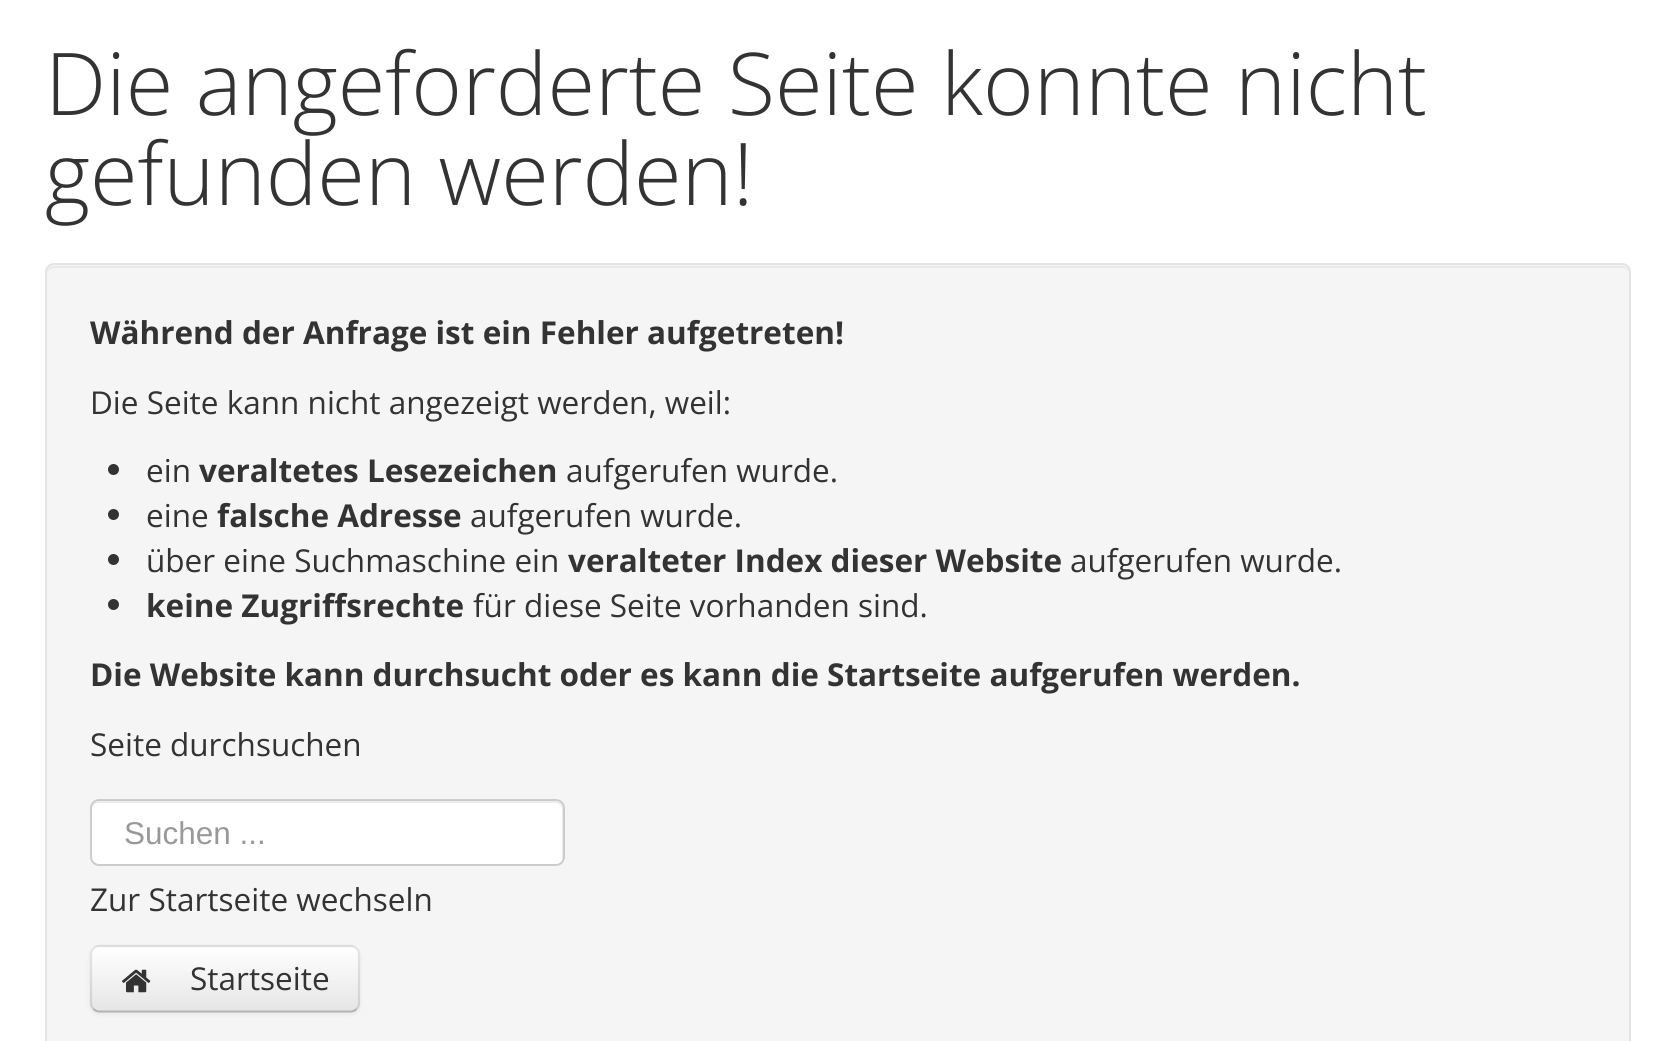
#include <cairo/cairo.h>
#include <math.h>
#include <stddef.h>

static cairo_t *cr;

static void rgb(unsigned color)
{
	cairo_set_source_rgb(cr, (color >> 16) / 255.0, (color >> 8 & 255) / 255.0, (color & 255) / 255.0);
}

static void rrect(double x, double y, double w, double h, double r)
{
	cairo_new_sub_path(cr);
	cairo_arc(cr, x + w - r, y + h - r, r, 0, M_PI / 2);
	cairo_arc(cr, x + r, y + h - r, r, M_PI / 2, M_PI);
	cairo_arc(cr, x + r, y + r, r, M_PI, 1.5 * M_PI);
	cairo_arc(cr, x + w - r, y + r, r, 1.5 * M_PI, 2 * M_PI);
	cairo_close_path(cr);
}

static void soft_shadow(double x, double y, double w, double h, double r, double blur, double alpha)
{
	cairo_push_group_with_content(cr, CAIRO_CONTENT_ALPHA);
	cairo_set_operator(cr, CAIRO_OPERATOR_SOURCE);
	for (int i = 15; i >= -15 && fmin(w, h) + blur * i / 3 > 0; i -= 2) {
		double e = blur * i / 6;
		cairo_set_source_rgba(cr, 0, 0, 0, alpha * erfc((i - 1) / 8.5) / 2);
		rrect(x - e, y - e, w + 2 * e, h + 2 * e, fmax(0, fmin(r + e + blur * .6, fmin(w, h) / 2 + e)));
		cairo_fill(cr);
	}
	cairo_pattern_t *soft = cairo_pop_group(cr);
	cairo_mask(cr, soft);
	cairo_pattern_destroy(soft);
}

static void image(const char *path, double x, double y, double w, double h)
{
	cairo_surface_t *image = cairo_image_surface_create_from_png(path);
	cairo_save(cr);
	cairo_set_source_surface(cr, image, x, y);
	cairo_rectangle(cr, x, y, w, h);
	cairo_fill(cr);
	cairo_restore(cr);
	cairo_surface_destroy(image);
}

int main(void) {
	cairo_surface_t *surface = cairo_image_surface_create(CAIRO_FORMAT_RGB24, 1675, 1041);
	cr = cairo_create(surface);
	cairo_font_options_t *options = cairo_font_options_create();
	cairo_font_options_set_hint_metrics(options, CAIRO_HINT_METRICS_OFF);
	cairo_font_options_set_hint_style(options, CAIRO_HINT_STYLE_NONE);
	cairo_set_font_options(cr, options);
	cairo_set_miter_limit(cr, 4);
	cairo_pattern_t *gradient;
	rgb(0xffffff);
	cairo_paint(cr);
	rgb(0xf5f5f5);
	rrect(45, 263, 1586, 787, 9);
	cairo_fill(cr);
	rgb(0xe9e9e9);
	cairo_new_path(cr);
	cairo_move_to(cr, 54, 268);
	cairo_line_to(cr, 1622, 268);
	cairo_curve_to(cr, 1626, 268, 1629, 271, 1629, 274);
	cairo_curve_to(cr, 1629, 270, 1627, 266, 1622, 266);
	cairo_line_to(cr, 54, 266);
	cairo_curve_to(cr, 49, 266, 47, 270, 47, 274);
	cairo_curve_to(cr, 47, 271, 50, 268, 54, 268);
	cairo_close_path(cr);
	cairo_fill(cr);
	rrect(46, 264, 1584, 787, 8);
	rgb(0xe3e3e3);
	cairo_stroke(cr);
	rgb(0x333333);
	cairo_arc(cr, 113.5, 469.5, 5.5, 0, 2 * M_PI);
	cairo_fill(cr);
	cairo_arc(cr, 113.5, 514.5, 5.5, 0, 2 * M_PI);
	cairo_fill(cr);
	cairo_arc(cr, 113.5, 559.5, 5.5, 0, 2 * M_PI);
	cairo_fill(cr);
	cairo_arc(cr, 113.5, 604.5, 5.5, 0, 2 * M_PI);
	cairo_fill(cr);
	rgb(0xffffff);
	rrect(90, 799, 475, 67, 9);
	cairo_fill(cr);
	rgb(0xececec);
	cairo_new_path(cr);
	cairo_move_to(cr, 99, 803);
	cairo_line_to(cr, 556, 803);
	cairo_curve_to(cr, 559, 803, 562, 806, 562, 810);
	cairo_line_to(cr, 562, 861);
	cairo_curve_to(cr, 563, 860, 563, 858, 563, 857);
	cairo_line_to(cr, 563, 808);
	cairo_curve_to(cr, 563, 804, 560, 801, 556, 801);
	cairo_line_to(cr, 99, 801);
	cairo_curve_to(cr, 95, 801, 92, 804, 92, 808);
	cairo_line_to(cr, 92, 810);
	cairo_curve_to(cr, 92, 806, 95, 803, 99, 803);
	cairo_close_path(cr);
	cairo_fill(cr);
	rrect(91, 800, 473, 65, 8);
	rgb(0xcccccc);
	cairo_stroke(cr);
	rgb(0x000000);
	soft_shadow(90, 947, 270, 68, 9, 2, 0.05);
	rgb(0xf5f5f5);
	rrect(90, 945, 270, 68, 9);
	cairo_fill(cr);
	cairo_save(cr);
	rrect(90, 945, 270, 68, 9);
	cairo_clip(cr);
	gradient = cairo_pattern_create_linear(225, 947, 225, 1010);
	cairo_pattern_add_color_stop_rgba(gradient, 0, 1, 1, 1, 1);
	cairo_pattern_add_color_stop_rgba(gradient, 1, 0.902, 0.902, 0.902, 1);
	cairo_set_source(cr, gradient);
	cairo_pattern_destroy(gradient);
	cairo_rectangle(cr, 90, 947, 270, 63);
	cairo_fill(cr);
	cairo_restore(cr);
	cairo_new_path(cr);
	cairo_move_to(cr, 356.5, 1009);
	cairo_curve_to(cr, 355, 1010.5, 353, 1011.5, 351, 1011.5);
	cairo_line_to(cr, 99, 1011.5);
	cairo_curve_to(cr, 97, 1011.5, 95, 1010.5, 93.5, 1009);
	rgb(0xb3b3b3);
	cairo_set_line_width(cr, 2.2);
	cairo_stroke(cr);
	cairo_new_path(cr);
	cairo_move_to(cr, 93.5, 1009);
	cairo_curve_to(cr, 92, 1007.5, 91, 1005.5, 91, 1003.5);
	cairo_line_to(cr, 91, 954);
	cairo_curve_to(cr, 91, 952, 92, 950, 93.5, 948.5);
	cairo_curve_to(cr, 95, 947, 97, 946, 99, 946);
	cairo_line_to(cr, 351, 946);
	cairo_curve_to(cr, 353, 946, 355, 947, 356.5, 948.5);
	cairo_curve_to(cr, 358, 950, 359, 952, 359, 954);
	cairo_line_to(cr, 359, 1003.5);
	cairo_curve_to(cr, 359, 1005.5, 358, 1007.5, 356.5, 1009);
	cairo_set_source_rgba(cr, 0, 0, 0, 0.1);
	cairo_stroke(cr);
	image("img/1.png", 122, 969, 29, 24);
	cairo_select_font_face(cr, "Open Sans Light", CAIRO_FONT_SLANT_NORMAL, CAIRO_FONT_WEIGHT_NORMAL);
	cairo_set_font_size(cr, 86.6);
	rgb(0x333333);
	cairo_move_to(cr, 45, 115);
	cairo_show_text(cr, "Die angeforderte Seite konnte nicht");
	cairo_move_to(cr, 45, 205);
	cairo_show_text(cr, "gefunden werden!");
	cairo_select_font_face(cr, "Open Sans", CAIRO_FONT_SLANT_NORMAL, CAIRO_FONT_WEIGHT_BOLD);
	cairo_set_font_size(cr, 31.5);
	cairo_move_to(cr, 90, 344);
	cairo_show_text(cr, "Während der Anfrage ist ein Fehler aufgetreten!");
	cairo_select_font_face(cr, "Open Sans", CAIRO_FONT_SLANT_NORMAL, CAIRO_FONT_WEIGHT_NORMAL);
	cairo_move_to(cr, 90, 414);
	cairo_show_text(cr, "Die Seite kann nicht angezeigt werden, weil:");
	cairo_move_to(cr, 146, 482);
	cairo_show_text(cr, "ein");
	cairo_select_font_face(cr, "Open Sans", CAIRO_FONT_SLANT_NORMAL, CAIRO_FONT_WEIGHT_BOLD);
	cairo_move_to(cr, 199, 482);
	cairo_show_text(cr, "veraltetes Lesezeichen");
	cairo_select_font_face(cr, "Open Sans", CAIRO_FONT_SLANT_NORMAL, CAIRO_FONT_WEIGHT_NORMAL);
	cairo_move_to(cr, 566, 482);
	cairo_show_text(cr, "aufgerufen wurde.");
	cairo_move_to(cr, 146, 527);
	cairo_show_text(cr, "eine");
	cairo_select_font_face(cr, "Open Sans", CAIRO_FONT_SLANT_NORMAL, CAIRO_FONT_WEIGHT_BOLD);
	cairo_move_to(cr, 217, 527);
	cairo_show_text(cr, "falsche Adresse");
	cairo_select_font_face(cr, "Open Sans", CAIRO_FONT_SLANT_NORMAL, CAIRO_FONT_WEIGHT_NORMAL);
	cairo_move_to(cr, 470, 527);
	cairo_show_text(cr, "aufgerufen wurde.");
	cairo_move_to(cr, 146, 572);
	cairo_show_text(cr, "über eine Suchmaschine ein");
	cairo_select_font_face(cr, "Open Sans", CAIRO_FONT_SLANT_NORMAL, CAIRO_FONT_WEIGHT_BOLD);
	cairo_move_to(cr, 568, 572);
	cairo_show_text(cr, "veralteter Index dieser Website");
	cairo_select_font_face(cr, "Open Sans", CAIRO_FONT_SLANT_NORMAL, CAIRO_FONT_WEIGHT_NORMAL);
	cairo_move_to(cr, 1070, 572);
	cairo_show_text(cr, "aufgerufen wurde.");
	cairo_select_font_face(cr, "Open Sans", CAIRO_FONT_SLANT_NORMAL, CAIRO_FONT_WEIGHT_BOLD);
	cairo_move_to(cr, 146, 617);
	cairo_show_text(cr, "keine Zugriffsrechte");
	cairo_select_font_face(cr, "Open Sans", CAIRO_FONT_SLANT_NORMAL, CAIRO_FONT_WEIGHT_NORMAL);
	cairo_move_to(cr, 473, 617);
	cairo_show_text(cr, "für diese Seite vorhanden sind.");
	cairo_select_font_face(cr, "Open Sans", CAIRO_FONT_SLANT_NORMAL, CAIRO_FONT_WEIGHT_BOLD);
	cairo_move_to(cr, 90, 686);
	cairo_show_text(cr, "Die Website kann durchsucht oder es kann die Startseite aufgerufen werden.");
	cairo_select_font_face(cr, "Open Sans", CAIRO_FONT_SLANT_NORMAL, CAIRO_FONT_WEIGHT_NORMAL);
	cairo_move_to(cr, 90, 756);
	cairo_show_text(cr, "Seite durchsuchen");
	cairo_select_font_face(cr, "Liberation Sans", CAIRO_FONT_SLANT_NORMAL, CAIRO_FONT_WEIGHT_NORMAL);
	rgb(0x999999);
	cairo_move_to(cr, 124, 844);
	cairo_show_text(cr, "Suchen ...");
	cairo_select_font_face(cr, "Open Sans", CAIRO_FONT_SLANT_NORMAL, CAIRO_FONT_WEIGHT_NORMAL);
	rgb(0x333333);
	cairo_move_to(cr, 90, 911);
	cairo_show_text(cr, "Zur Startseite wechseln");
	cairo_move_to(cr, 190, 990);
	cairo_show_text(cr, "Startseite");
	cairo_surface_write_to_png(surface, "page.png");
	cairo_font_options_destroy(options);
	cairo_destroy(cr);
	cairo_surface_destroy(surface);
	return 0;
}
